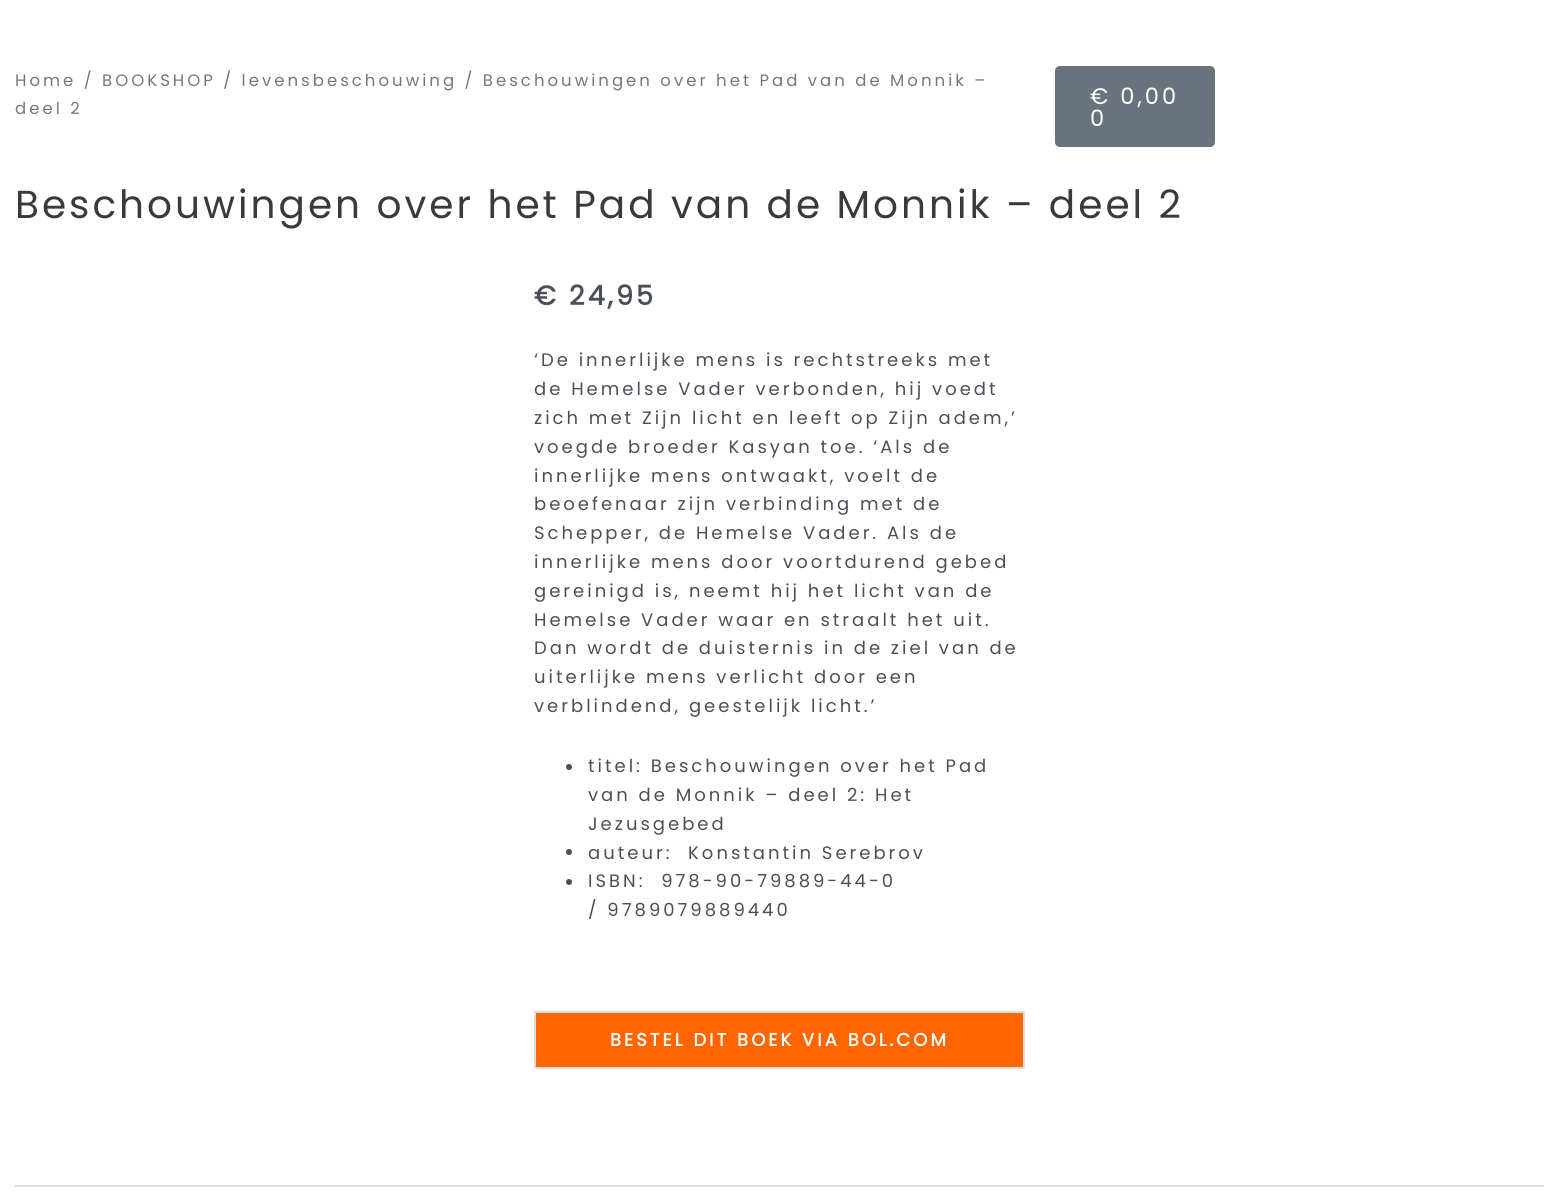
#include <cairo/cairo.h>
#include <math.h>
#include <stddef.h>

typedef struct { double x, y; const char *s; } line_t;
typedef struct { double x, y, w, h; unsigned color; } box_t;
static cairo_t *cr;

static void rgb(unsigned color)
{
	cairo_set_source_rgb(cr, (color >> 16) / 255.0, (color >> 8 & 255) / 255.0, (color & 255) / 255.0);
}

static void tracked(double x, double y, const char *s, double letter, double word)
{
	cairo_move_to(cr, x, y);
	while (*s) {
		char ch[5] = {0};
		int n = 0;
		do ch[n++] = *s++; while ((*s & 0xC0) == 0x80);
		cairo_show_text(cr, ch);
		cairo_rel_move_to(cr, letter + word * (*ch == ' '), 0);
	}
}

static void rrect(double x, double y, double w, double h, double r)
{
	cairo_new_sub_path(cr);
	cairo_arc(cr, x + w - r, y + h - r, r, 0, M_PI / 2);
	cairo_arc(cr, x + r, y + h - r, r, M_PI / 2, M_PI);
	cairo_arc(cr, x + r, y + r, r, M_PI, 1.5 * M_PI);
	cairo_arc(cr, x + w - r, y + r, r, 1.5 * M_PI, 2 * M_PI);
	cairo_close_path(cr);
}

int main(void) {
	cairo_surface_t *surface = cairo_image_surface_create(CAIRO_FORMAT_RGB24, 1558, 1201);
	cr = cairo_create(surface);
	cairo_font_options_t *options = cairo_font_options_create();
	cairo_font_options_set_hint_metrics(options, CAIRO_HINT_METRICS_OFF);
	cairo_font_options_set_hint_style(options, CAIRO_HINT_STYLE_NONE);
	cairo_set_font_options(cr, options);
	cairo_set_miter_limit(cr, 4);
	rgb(0xffffff);
	cairo_paint(cr);
	rgb(0x69727d);
	rrect(1055, 66, 160, 81, 5);
	cairo_fill(cr);
	rgb(0x4b4f58);
	cairo_arc(cr, 569, 767, 3, 0, 2 * M_PI);
	cairo_fill(cr);
	cairo_arc(cr, 569, 852, 3, 0, 2 * M_PI);
	cairo_fill(cr);
	cairo_arc(cr, 569, 882, 3, 0, 2 * M_PI);
	cairo_fill(cr);
	{
		static const box_t items[] = {
			{534, 1011, 491, 2, 0xdddddd},
			{534, 1011, 2, 57, 0xdddddd},
			{536, 1013, 487, 54, 0xff6600},
			{1023, 1013, 2, 55, 0xdddddd},
			{536, 1067, 489, 2, 0xdddddd},
			{15, 1185, 1529, 2, 0xdddddd},
		};
		for (size_t i = 0; i < sizeof items / sizeof *items; i++) {
			rgb(items[i].color);
			cairo_rectangle(cr, items[i].x, items[i].y, items[i].w, items[i].h);
			cairo_fill(cr);
		}
	}
	cairo_select_font_face(cr, "Poppins", CAIRO_FONT_SLANT_NORMAL, CAIRO_FONT_WEIGHT_NORMAL);
	cairo_set_font_size(cr, 16.55);
	rgb(0x777777);
	tracked(15, 86, "Home / BOOKSHOP / levensbeschouwing / Beschouwingen over het Pad van de Monnik –", 3, 0);
	tracked(15, 114, "deel 2", 3, 0);
	cairo_set_font_size(cr, 22.5);
	rgb(0xffffff);
	tracked(1090, 104, "€ 0,00", 3, 0);
	tracked(1090, 126, "0", 3, 0);
	cairo_set_font_size(cr, 39);
	rgb(0x3a3a3a);
	tracked(15, 218, "Beschouwingen over het Pad van de Monnik – deel 2", 3, 0);
	cairo_select_font_face(cr, "Poppins", CAIRO_FONT_SLANT_NORMAL, CAIRO_FONT_WEIGHT_BOLD);
	cairo_set_font_size(cr, 27);
	rgb(0x4b4f58);
	tracked(534, 305, "€ 24,95", 3, 0);
	cairo_select_font_face(cr, "Poppins", CAIRO_FONT_SLANT_NORMAL, CAIRO_FONT_WEIGHT_NORMAL);
	cairo_set_font_size(cr, 18);
	{
		static const line_t items[] = {
			{534, 366, "‘De innerlijke mens is rechtstreeks met"},
			{534, 395, "de Hemelse Vader verbonden, hij voedt"},
			{534, 424, "zich met Zijn licht en leeft op Zijn adem,’"},
			{534, 453, "voegde broeder Kasyan toe. ‘Als de"},
			{534, 482, "innerlijke mens ontwaakt, voelt de"},
			{534, 510, "beoefenaar zijn verbinding met de"},
			{534, 539, "Schepper, de Hemelse Vader. Als de"},
			{534, 568, "innerlijke mens door voortdurend gebed"},
			{534, 597, "gereinigd is, neemt hij het licht van de"},
			{534, 626, "Hemelse Vader waar en straalt het uit."},
			{534, 654, "Dan wordt de duisternis in de ziel van de"},
			{534, 683, "uiterlijke mens verlicht door een"},
			{534, 712, "verblindend, geestelijk licht.’"},
			{588, 772, "titel: Beschouwingen over het Pad"},
			{588, 801, "van de Monnik – deel 2: Het"},
			{588, 830, "Jezusgebed"},
			{588, 859, "auteur:  Konstantin Serebrov"},
			{588, 887, "ISBN:  978-90-79889-44-0"},
			{588, 916, "/ 9789079889440"},
		};
		for (size_t i = 0; i < sizeof items / sizeof *items; i++) {
			tracked(items[i].x, items[i].y, items[i].s, 3, 0);
		}
	}
	cairo_select_font_face(cr, "Poppins", CAIRO_FONT_SLANT_NORMAL, CAIRO_FONT_WEIGHT_BOLD);
	rgb(0xffffff);
	tracked(610, 1046, "BESTEL DIT BOEK VIA BOL.COM", 3, 0);
	cairo_surface_write_to_png(surface, "page.png");
	cairo_font_options_destroy(options);
	cairo_destroy(cr);
	cairo_surface_destroy(surface);
	return 0;
}
